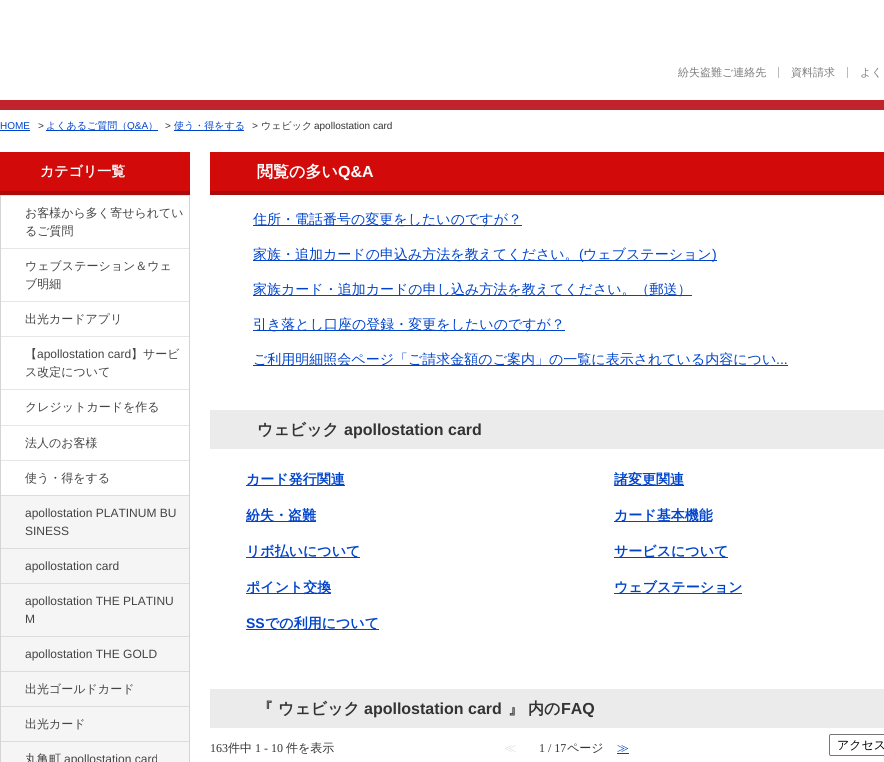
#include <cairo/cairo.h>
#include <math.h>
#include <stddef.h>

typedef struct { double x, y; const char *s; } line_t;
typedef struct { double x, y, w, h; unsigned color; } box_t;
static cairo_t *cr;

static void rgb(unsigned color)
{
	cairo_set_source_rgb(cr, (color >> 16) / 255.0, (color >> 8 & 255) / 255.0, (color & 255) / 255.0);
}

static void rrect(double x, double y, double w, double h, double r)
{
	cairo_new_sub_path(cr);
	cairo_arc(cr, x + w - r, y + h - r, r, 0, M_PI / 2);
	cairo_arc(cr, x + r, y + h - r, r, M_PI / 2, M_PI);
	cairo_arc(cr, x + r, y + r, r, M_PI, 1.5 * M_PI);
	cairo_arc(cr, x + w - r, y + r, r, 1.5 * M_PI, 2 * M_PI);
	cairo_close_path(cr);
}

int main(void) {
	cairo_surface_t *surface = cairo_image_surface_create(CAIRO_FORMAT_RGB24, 884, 762);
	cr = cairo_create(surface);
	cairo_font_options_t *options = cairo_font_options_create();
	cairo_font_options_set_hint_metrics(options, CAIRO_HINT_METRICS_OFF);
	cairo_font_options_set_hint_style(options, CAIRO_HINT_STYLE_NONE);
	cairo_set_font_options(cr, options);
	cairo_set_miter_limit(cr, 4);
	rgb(0xffffff);
	cairo_paint(cr);
	{
		static const box_t items[] = {
			{0, 100, 884, 10, 0xc0232b},
			{778, 67, 1, 11, 0xbababa},
			{847, 67, 1, 11, 0xbababa},
			{0, 130, 30, 1, 0x0044cc},
			{46, 130, 112, 1, 0x0044cc},
			{174, 130, 70, 1, 0x0044cc},
			{0, 152, 190, 39, 0xd20a0a},
			{0, 191, 190, 4, 0xab0b0b},
			{189, 195, 1, 567, 0xd4d4d4},
			{0, 195, 1, 567, 0xd4d4d4},
			{1, 195, 188, 1, 0xe6e6e6},
			{1, 248, 188, 1, 0xe6e6e6},
			{1, 301, 188, 1, 0xe6e6e6},
			{1, 336, 188, 1, 0xe6e6e6},
			{1, 389, 188, 1, 0xe6e6e6},
			{1, 425, 188, 1, 0xe6e6e6},
			{1, 460, 188, 1, 0xe6e6e6},
			{1, 496, 188, 266, 0xf5f5f5},
			{1, 495, 188, 1, 0xdcdcdc},
			{1, 548, 188, 1, 0xdcdcdc},
			{1, 583, 188, 1, 0xdcdcdc},
			{1, 636, 188, 1, 0xdcdcdc},
			{1, 671, 188, 1, 0xdcdcdc},
			{1, 706, 188, 1, 0xdcdcdc},
			{1, 741, 188, 1, 0xdcdcdc},
			{210, 152, 674, 39, 0xd20a0a},
			{210, 191, 674, 4, 0xab0b0b},
			{253, 225, 269, 1, 0x0044cc},
			{253, 260, 464, 1, 0x0044cc},
			{253, 295, 439, 1, 0x0044cc},
			{253, 330, 312, 1, 0x0044cc},
			{253, 365, 535, 1, 0x0044cc},
			{210, 410, 674, 39, 0xebebeb},
			{246, 485, 99, 1, 0x0044cc},
			{614, 485, 70, 1, 0x0044cc},
			{246, 521, 70, 1, 0x0044cc},
			{614, 521, 98, 1, 0x0044cc},
			{246, 557, 114, 1, 0x0044cc},
			{614, 557, 114, 1, 0x0044cc},
			{246, 593, 85, 1, 0x0044cc},
			{614, 593, 128, 1, 0x0044cc},
			{246, 629, 133, 1, 0x0044cc},
			{210, 689, 674, 39, 0xebebeb},
			{617, 753, 12, 1, 0x0044cc},
		};
		for (size_t i = 0; i < sizeof items / sizeof *items; i++) {
			rgb(items[i].color);
			cairo_rectangle(cr, items[i].x, items[i].y, items[i].w, items[i].h);
			cairo_fill(cr);
		}
	}
	rrect(829.5, 734.5, 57, 21, 1.5);
	rgb(0x767676);
	cairo_set_line_width(cr, 1);
	cairo_stroke(cr);
	cairo_select_font_face(cr, "WenQuanYi Zen Hei Medium", CAIRO_FONT_SLANT_NORMAL, CAIRO_FONT_WEIGHT_NORMAL);
	cairo_set_font_size(cr, 11);
	rgb(0x7d7d7d);
	{
		static const line_t items[] = {
			{678, 76, "紛失盗難ご連絡先"},
			{791, 76, "資料請求"},
			{860, 76, "よく"},
		};
		for (size_t i = 0; i < sizeof items / sizeof *items; i++) {
			cairo_move_to(cr, items[i].x, items[i].y);
			cairo_show_text(cr, items[i].s);
		}
	}
	cairo_select_font_face(cr, "Liberation Sans", CAIRO_FONT_SLANT_NORMAL, CAIRO_FONT_WEIGHT_NORMAL);
	cairo_set_font_size(cr, 10);
	rgb(0x0044cc);
	cairo_move_to(cr, 0, 129);
	cairo_show_text(cr, "HOME");
	rgb(0x333333);
	cairo_move_to(cr, 38, 129);
	cairo_show_text(cr, ">");
	cairo_select_font_face(cr, "WenQuanYi Zen Hei Medium", CAIRO_FONT_SLANT_NORMAL, CAIRO_FONT_WEIGHT_NORMAL);
	rgb(0x0044cc);
	cairo_move_to(cr, 46, 129);
	cairo_show_text(cr, "よくあるご質問（");
	cairo_select_font_face(cr, "Liberation Sans", CAIRO_FONT_SLANT_NORMAL, CAIRO_FONT_WEIGHT_NORMAL);
	cairo_move_to(cr, 127, 129);
	cairo_show_text(cr, "Q&A");
	cairo_select_font_face(cr, "WenQuanYi Zen Hei Medium", CAIRO_FONT_SLANT_NORMAL, CAIRO_FONT_WEIGHT_NORMAL);
	cairo_move_to(cr, 148, 129);
	cairo_show_text(cr, "）");
	cairo_select_font_face(cr, "Liberation Sans", CAIRO_FONT_SLANT_NORMAL, CAIRO_FONT_WEIGHT_NORMAL);
	rgb(0x333333);
	cairo_move_to(cr, 165, 129);
	cairo_show_text(cr, ">");
	cairo_select_font_face(cr, "WenQuanYi Zen Hei Medium", CAIRO_FONT_SLANT_NORMAL, CAIRO_FONT_WEIGHT_NORMAL);
	rgb(0x0044cc);
	cairo_move_to(cr, 174, 129);
	cairo_show_text(cr, "使う・得をする");
	cairo_select_font_face(cr, "Liberation Sans", CAIRO_FONT_SLANT_NORMAL, CAIRO_FONT_WEIGHT_NORMAL);
	rgb(0x333333);
	cairo_move_to(cr, 252, 129);
	cairo_show_text(cr, ">");
	cairo_select_font_face(cr, "WenQuanYi Zen Hei Medium", CAIRO_FONT_SLANT_NORMAL, CAIRO_FONT_WEIGHT_NORMAL);
	cairo_move_to(cr, 261, 129);
	cairo_show_text(cr, "ウェビック");
	cairo_select_font_face(cr, "Liberation Sans", CAIRO_FONT_SLANT_NORMAL, CAIRO_FONT_WEIGHT_NORMAL);
	cairo_move_to(cr, 314, 129);
	cairo_show_text(cr, "apollostation card");
	cairo_select_font_face(cr, "WenQuanYi Zen Hei", CAIRO_FONT_SLANT_NORMAL, CAIRO_FONT_WEIGHT_BOLD);
	cairo_set_font_size(cr, 14);
	rgb(0xffffff);
	cairo_move_to(cr, 40, 176);
	cairo_show_text(cr, "カテゴリ一覧");
	cairo_select_font_face(cr, "WenQuanYi Zen Hei Medium", CAIRO_FONT_SLANT_NORMAL, CAIRO_FONT_WEIGHT_NORMAL);
	cairo_set_font_size(cr, 12);
	rgb(0x444444);
	{
		static const line_t items[] = {
			{25, 217, "お客様から多く寄せられてい"},
			{25, 235, "るご質問"},
			{25, 270, "ウェブステーション＆ウェ"},
			{25, 288, "ブ明細"},
			{25, 323, "出光カードアプリ"},
			{25, 358, "【"},
		};
		for (size_t i = 0; i < sizeof items / sizeof *items; i++) {
			cairo_move_to(cr, items[i].x, items[i].y);
			cairo_show_text(cr, items[i].s);
		}
	}
	cairo_select_font_face(cr, "Liberation Sans", CAIRO_FONT_SLANT_NORMAL, CAIRO_FONT_WEIGHT_NORMAL);
	cairo_move_to(cr, 37, 358);
	cairo_show_text(cr, "apollostation card");
	cairo_select_font_face(cr, "WenQuanYi Zen Hei Medium", CAIRO_FONT_SLANT_NORMAL, CAIRO_FONT_WEIGHT_NORMAL);
	{
		static const line_t items[] = {
			{131, 358, "】サービ"},
			{25, 376, "ス改定について"},
			{25, 411, "クレジットカードを作る"},
			{25, 447, "法人のお客様"},
			{25, 482, "使う・得をする"},
		};
		for (size_t i = 0; i < sizeof items / sizeof *items; i++) {
			cairo_move_to(cr, items[i].x, items[i].y);
			cairo_show_text(cr, items[i].s);
		}
	}
	cairo_select_font_face(cr, "Liberation Sans", CAIRO_FONT_SLANT_NORMAL, CAIRO_FONT_WEIGHT_NORMAL);
	{
		static const line_t items[] = {
			{25, 517, "apollostation PLATINUM BU"},
			{25, 535, "SINESS"},
			{25, 570, "apollostation card"},
			{25, 605, "apollostation THE PLATINU"},
			{25, 623, "M"},
			{25, 658, "apollostation THE GOLD"},
		};
		for (size_t i = 0; i < sizeof items / sizeof *items; i++) {
			cairo_move_to(cr, items[i].x, items[i].y);
			cairo_show_text(cr, items[i].s);
		}
	}
	cairo_select_font_face(cr, "WenQuanYi Zen Hei Medium", CAIRO_FONT_SLANT_NORMAL, CAIRO_FONT_WEIGHT_NORMAL);
	{
		static const line_t items[] = {
			{25, 693, "出光ゴールドカード"},
			{25, 728, "出光カード"},
			{25, 763, "丸亀町"},
		};
		for (size_t i = 0; i < sizeof items / sizeof *items; i++) {
			cairo_move_to(cr, items[i].x, items[i].y);
			cairo_show_text(cr, items[i].s);
		}
	}
	cairo_select_font_face(cr, "Liberation Sans", CAIRO_FONT_SLANT_NORMAL, CAIRO_FONT_WEIGHT_NORMAL);
	cairo_move_to(cr, 64, 763);
	cairo_show_text(cr, "apollostation card");
	cairo_select_font_face(cr, "WenQuanYi Zen Hei", CAIRO_FONT_SLANT_NORMAL, CAIRO_FONT_WEIGHT_BOLD);
	cairo_set_font_size(cr, 16);
	rgb(0xffffff);
	cairo_move_to(cr, 257, 177);
	cairo_show_text(cr, "閲覧の多い");
	cairo_select_font_face(cr, "Liberation Sans", CAIRO_FONT_SLANT_NORMAL, CAIRO_FONT_WEIGHT_BOLD);
	cairo_move_to(cr, 338, 177);
	cairo_show_text(cr, "Q&A");
	cairo_select_font_face(cr, "WenQuanYi Zen Hei Medium", CAIRO_FONT_SLANT_NORMAL, CAIRO_FONT_WEIGHT_NORMAL);
	cairo_set_font_size(cr, 14);
	rgb(0x0044cc);
	cairo_move_to(cr, 253, 224);
	cairo_show_text(cr, "住所・電話番号の変更をしたいのですが？");
	cairo_move_to(cr, 253, 259);
	cairo_show_text(cr, "家族・追加カードの申込み方法を教えてください。");
	cairo_select_font_face(cr, "Liberation Sans", CAIRO_FONT_SLANT_NORMAL, CAIRO_FONT_WEIGHT_NORMAL);
	cairo_move_to(cr, 579, 259);
	cairo_show_text(cr, "(");
	cairo_select_font_face(cr, "WenQuanYi Zen Hei Medium", CAIRO_FONT_SLANT_NORMAL, CAIRO_FONT_WEIGHT_NORMAL);
	cairo_move_to(cr, 583, 259);
	cairo_show_text(cr, "ウェブステーション");
	cairo_select_font_face(cr, "Liberation Sans", CAIRO_FONT_SLANT_NORMAL, CAIRO_FONT_WEIGHT_NORMAL);
	cairo_move_to(cr, 712, 259);
	cairo_show_text(cr, ")");
	cairo_select_font_face(cr, "WenQuanYi Zen Hei Medium", CAIRO_FONT_SLANT_NORMAL, CAIRO_FONT_WEIGHT_NORMAL);
	{
		static const line_t items[] = {
			{253, 294, "家族カード・追加カードの申し込み方法を教えてください。（郵送）"},
			{253, 329, "引き落とし口座の登録・変更をしたいのですが？"},
			{253, 364, "ご利用明細照会ページ「ご請求金額のご案内」の一覧に表示されている内容につい"},
		};
		for (size_t i = 0; i < sizeof items / sizeof *items; i++) {
			cairo_move_to(cr, items[i].x, items[i].y);
			cairo_show_text(cr, items[i].s);
		}
	}
	cairo_select_font_face(cr, "Liberation Sans", CAIRO_FONT_SLANT_NORMAL, CAIRO_FONT_WEIGHT_NORMAL);
	cairo_move_to(cr, 776, 364);
	cairo_show_text(cr, "...");
	cairo_select_font_face(cr, "WenQuanYi Zen Hei", CAIRO_FONT_SLANT_NORMAL, CAIRO_FONT_WEIGHT_BOLD);
	cairo_set_font_size(cr, 16);
	rgb(0x333333);
	cairo_move_to(cr, 257, 435);
	cairo_show_text(cr, "ウェビック");
	cairo_select_font_face(cr, "Liberation Sans", CAIRO_FONT_SLANT_NORMAL, CAIRO_FONT_WEIGHT_BOLD);
	cairo_move_to(cr, 344, 435);
	cairo_show_text(cr, "apollostation card");
	cairo_select_font_face(cr, "WenQuanYi Zen Hei", CAIRO_FONT_SLANT_NORMAL, CAIRO_FONT_WEIGHT_BOLD);
	cairo_set_font_size(cr, 14);
	rgb(0x0044cc);
	{
		static const line_t items[] = {
			{246, 484, "カード発行関連"},
			{614, 484, "諸変更関連"},
			{246, 520, "紛失・盗難"},
			{614, 520, "カード基本機能"},
			{246, 556, "リボ払いについて"},
			{614, 556, "サービスについて"},
			{246, 592, "ポイント交換"},
			{614, 592, "ウェブステーション"},
		};
		for (size_t i = 0; i < sizeof items / sizeof *items; i++) {
			cairo_move_to(cr, items[i].x, items[i].y);
			cairo_show_text(cr, items[i].s);
		}
	}
	cairo_select_font_face(cr, "Liberation Sans", CAIRO_FONT_SLANT_NORMAL, CAIRO_FONT_WEIGHT_BOLD);
	cairo_move_to(cr, 246, 628);
	cairo_show_text(cr, "SS");
	cairo_select_font_face(cr, "WenQuanYi Zen Hei", CAIRO_FONT_SLANT_NORMAL, CAIRO_FONT_WEIGHT_BOLD);
	cairo_move_to(cr, 265, 628);
	cairo_show_text(cr, "での利用について");
	cairo_set_font_size(cr, 16);
	rgb(0x333333);
	cairo_move_to(cr, 257, 714);
	cairo_show_text(cr, "『");
	cairo_move_to(cr, 278, 714);
	cairo_show_text(cr, "ウェビック");
	cairo_select_font_face(cr, "Liberation Sans", CAIRO_FONT_SLANT_NORMAL, CAIRO_FONT_WEIGHT_BOLD);
	cairo_move_to(cr, 364, 714);
	cairo_show_text(cr, "apollostation card");
	cairo_select_font_face(cr, "WenQuanYi Zen Hei", CAIRO_FONT_SLANT_NORMAL, CAIRO_FONT_WEIGHT_BOLD);
	cairo_move_to(cr, 508, 714);
	cairo_show_text(cr, "』");
	cairo_move_to(cr, 528, 714);
	cairo_show_text(cr, "内の");
	cairo_select_font_face(cr, "Liberation Sans", CAIRO_FONT_SLANT_NORMAL, CAIRO_FONT_WEIGHT_BOLD);
	cairo_move_to(cr, 561, 714);
	cairo_show_text(cr, "FAQ");
	cairo_select_font_face(cr, "Liberation Serif", CAIRO_FONT_SLANT_NORMAL, CAIRO_FONT_WEIGHT_NORMAL);
	cairo_set_font_size(cr, 12);
	cairo_move_to(cr, 210, 752);
	cairo_show_text(cr, "163");
	cairo_select_font_face(cr, "WenQuanYi Zen Hei Medium", CAIRO_FONT_SLANT_NORMAL, CAIRO_FONT_WEIGHT_NORMAL);
	cairo_move_to(cr, 228, 752);
	cairo_show_text(cr, "件中");
	cairo_select_font_face(cr, "Liberation Serif", CAIRO_FONT_SLANT_NORMAL, CAIRO_FONT_WEIGHT_NORMAL);
	cairo_move_to(cr, 255, 752);
	cairo_show_text(cr, "1 - 10");
	cairo_select_font_face(cr, "WenQuanYi Zen Hei Medium", CAIRO_FONT_SLANT_NORMAL, CAIRO_FONT_WEIGHT_NORMAL);
	cairo_move_to(cr, 286, 752);
	cairo_show_text(cr, "件を表示");
	rgb(0xdddddd);
	cairo_move_to(cr, 504, 752);
	cairo_show_text(cr, "≪");
	cairo_select_font_face(cr, "Liberation Serif", CAIRO_FONT_SLANT_NORMAL, CAIRO_FONT_WEIGHT_NORMAL);
	rgb(0x333333);
	cairo_move_to(cr, 539, 752);
	cairo_show_text(cr, "1 / 17");
	cairo_select_font_face(cr, "WenQuanYi Zen Hei Medium", CAIRO_FONT_SLANT_NORMAL, CAIRO_FONT_WEIGHT_NORMAL);
	cairo_move_to(cr, 567, 752);
	cairo_show_text(cr, "ページ");
	rgb(0x0044cc);
	cairo_move_to(cr, 617, 752);
	cairo_show_text(cr, "≫");
	rgb(0x000000);
	cairo_move_to(cr, 837, 749);
	cairo_show_text(cr, "アクセス");
	cairo_surface_write_to_png(surface, "page.png");
	cairo_font_options_destroy(options);
	cairo_destroy(cr);
	cairo_surface_destroy(surface);
	return 0;
}
